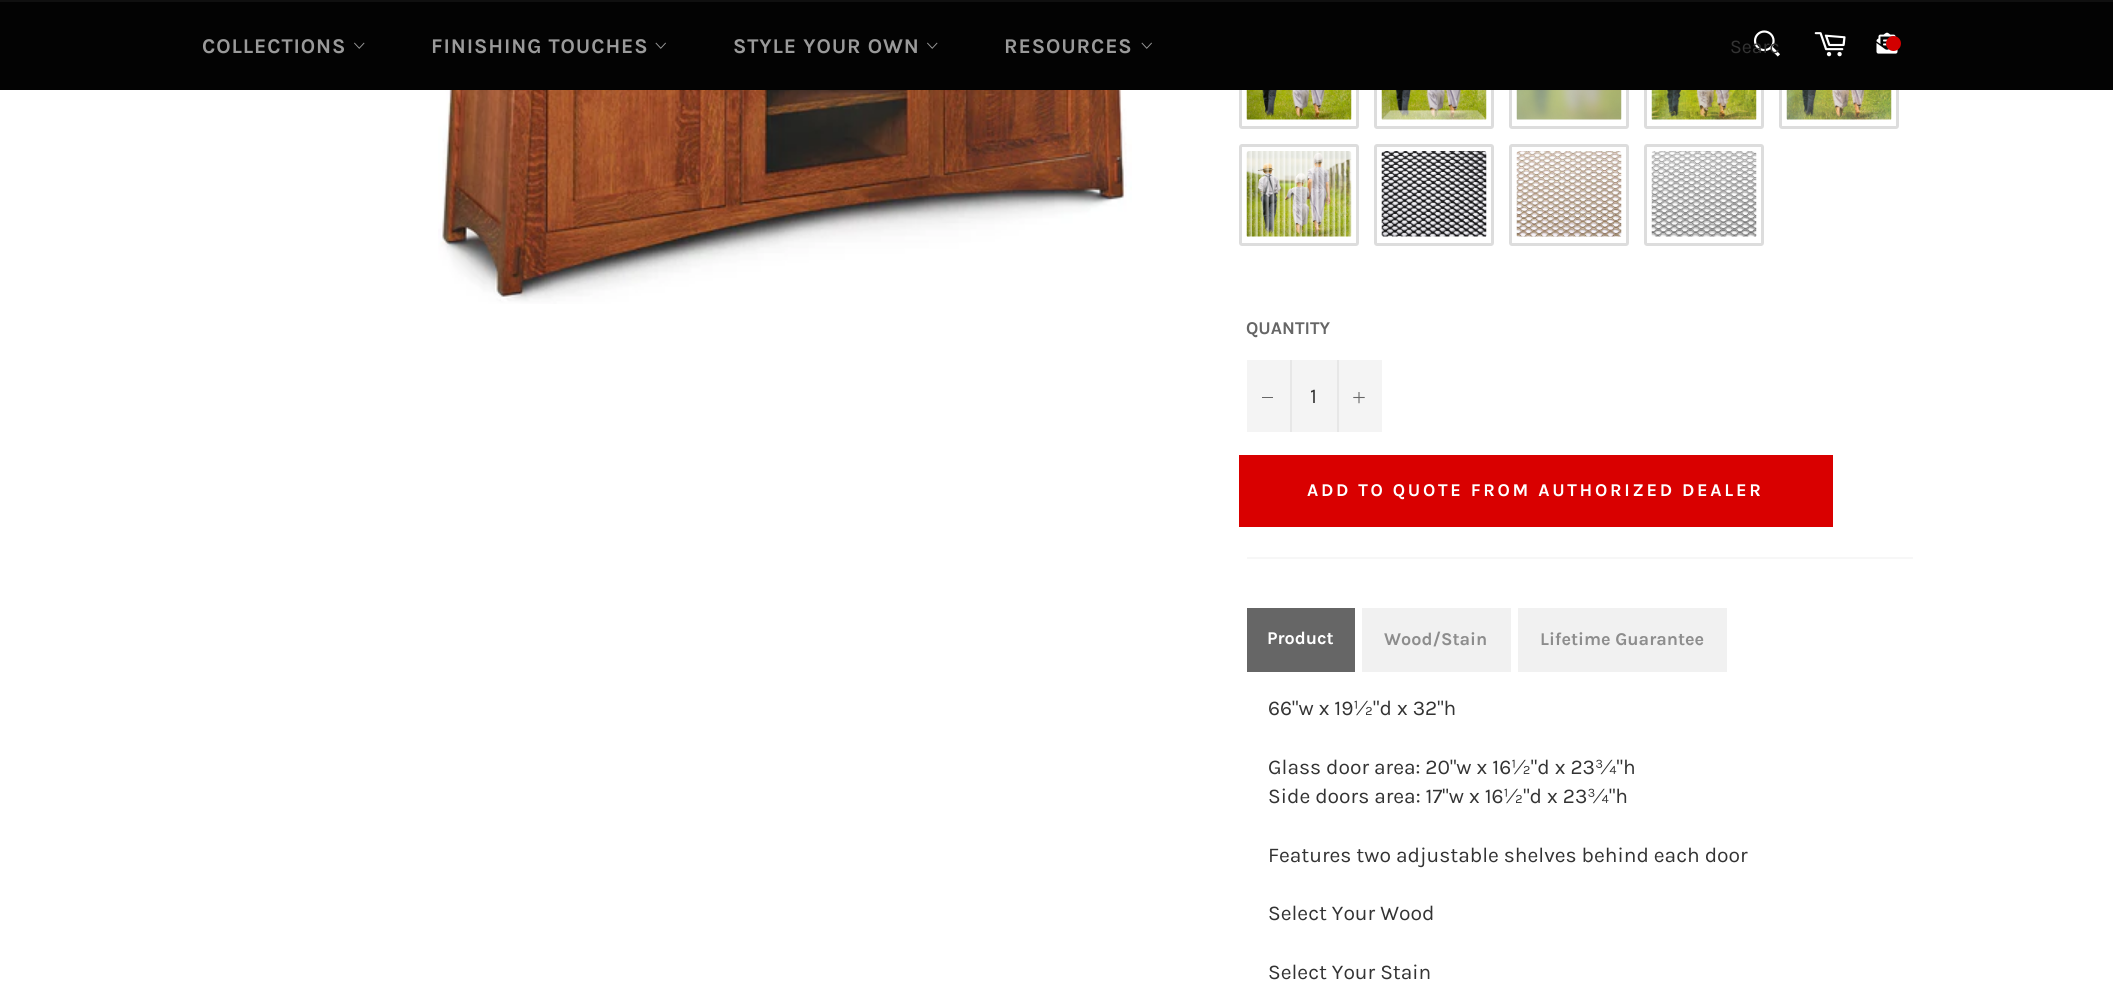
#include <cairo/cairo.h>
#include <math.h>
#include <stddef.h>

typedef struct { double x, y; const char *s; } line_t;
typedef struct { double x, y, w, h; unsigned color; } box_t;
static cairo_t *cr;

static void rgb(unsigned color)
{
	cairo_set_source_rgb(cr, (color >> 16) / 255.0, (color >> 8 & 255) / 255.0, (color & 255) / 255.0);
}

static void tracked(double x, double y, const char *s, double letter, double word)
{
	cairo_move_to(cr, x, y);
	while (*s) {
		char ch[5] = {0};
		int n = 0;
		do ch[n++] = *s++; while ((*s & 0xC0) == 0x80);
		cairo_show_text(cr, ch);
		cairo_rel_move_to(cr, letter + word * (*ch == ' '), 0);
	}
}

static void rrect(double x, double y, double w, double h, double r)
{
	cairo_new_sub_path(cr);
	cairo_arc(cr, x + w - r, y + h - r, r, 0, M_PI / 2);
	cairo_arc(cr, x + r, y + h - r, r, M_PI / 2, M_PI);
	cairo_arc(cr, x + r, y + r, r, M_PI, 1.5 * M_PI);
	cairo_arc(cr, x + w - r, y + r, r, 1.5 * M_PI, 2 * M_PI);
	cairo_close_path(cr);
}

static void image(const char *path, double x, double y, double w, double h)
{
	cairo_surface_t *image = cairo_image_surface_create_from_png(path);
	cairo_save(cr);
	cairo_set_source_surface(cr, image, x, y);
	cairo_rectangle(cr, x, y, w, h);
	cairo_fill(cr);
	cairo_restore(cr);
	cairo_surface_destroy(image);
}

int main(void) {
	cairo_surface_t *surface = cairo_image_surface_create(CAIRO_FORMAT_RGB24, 2113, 1003);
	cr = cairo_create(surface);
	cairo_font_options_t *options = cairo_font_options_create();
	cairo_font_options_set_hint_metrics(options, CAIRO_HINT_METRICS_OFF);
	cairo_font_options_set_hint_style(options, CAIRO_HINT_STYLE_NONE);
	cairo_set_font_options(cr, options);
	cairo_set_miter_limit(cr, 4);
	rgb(0xffffff);
	cairo_paint(cr);
	rrect(1240.5, 28.5, 117, 99, 1.5);
	rgb(0xdddddd);
	cairo_set_line_width(cr, 3);
	cairo_stroke(cr);
	rrect(1375.5, 28.5, 117, 99, 1.5);
	cairo_stroke(cr);
	rrect(1510.5, 28.5, 117, 99, 1.5);
	cairo_stroke(cr);
	rrect(1645.5, 28.5, 117, 99, 1.5);
	cairo_stroke(cr);
	rrect(1780.5, 28.5, 117, 99, 1.5);
	cairo_stroke(cr);
	rgb(0x030303);
	cairo_rectangle(cr, 0, 2, 2113, 88);
	cairo_fill(cr);
	rgb(0x101010);
	cairo_rectangle(cr, 0, 0, 2113, 2);
	cairo_fill(cr);
	image("img/1.png", 354, 42, 11, 7);
	image("img/2.png", 655, 42, 11, 7);
	image("img/1.png", 927, 42, 11, 7);
	image("img/2.png", 1141, 42, 11, 7);
	image("img/3.png", 1753, 30, 27, 27);
	image("img/4.png", 1814, 32, 32, 25);
	image("img/5.png", 1876, 32, 22, 22);
	rgb(0xd20000);
	cairo_arc(cr, 1893.5, 43.5, 7.5, 0, 2 * M_PI);
	cairo_fill(cr);
	image("img/6.png", 438, 90, 694, 214);
	image("img/7.png", 1246, 90, 106, 30);
	image("img/8.png", 1381, 90, 106, 30);
	image("img/9.png", 1516, 90, 106, 30);
	image("img/10.png", 1651, 90, 106, 30);
	image("img/11.png", 1786, 90, 106, 30);
	rrect(1240.5, 145.5, 117, 99, 1.5);
	rgb(0xdddddd);
	cairo_stroke(cr);
	image("img/12.png", 1246, 151, 106, 86);
	rrect(1375.5, 145.5, 117, 99, 1.5);
	cairo_stroke(cr);
	image("img/13.png", 1381, 151, 106, 86);
	rrect(1510.5, 145.5, 117, 99, 1.5);
	cairo_stroke(cr);
	image("img/14.png", 1516, 151, 106, 86);
	rrect(1645.5, 145.5, 117, 99, 1.5);
	cairo_stroke(cr);
	image("img/15.png", 1651, 151, 106, 86);
	{
		static const box_t items[] = {
			{1247, 360, 135, 72, 0xf4f4f4},
			{1290, 360, 2, 72, 0xe7e7e7},
			{1262, 397, 11, 1, 0x666666},
			{1337, 360, 2, 72, 0xe7e7e7},
		};
		for (size_t i = 0; i < sizeof items / sizeof *items; i++) {
			rgb(items[i].color);
			cairo_rectangle(cr, items[i].x, items[i].y, items[i].w, items[i].h);
			cairo_fill(cr);
		}
	}
	image("img/16.png", 1353, 392, 12, 12);
	{
		static const box_t items[] = {
			{1239, 455, 594, 72, 0xd90000},
			{1247, 557, 666, 2, 0xf7f7f7},
			{1247, 608, 108, 64, 0x666666},
			{1362, 608, 149, 64, 0xf1f1f1},
			{1518, 608, 209, 64, 0xf1f1f1},
		};
		for (size_t i = 0; i < sizeof items / sizeof *items; i++) {
			rgb(items[i].color);
			cairo_rectangle(cr, items[i].x, items[i].y, items[i].w, items[i].h);
			cairo_fill(cr);
		}
	}
	cairo_select_font_face(cr, "Karla", CAIRO_FONT_SLANT_NORMAL, CAIRO_FONT_WEIGHT_BOLD);
	cairo_set_font_size(cr, 21);
	rgb(0x9a9a9a);
	{
		static const line_t items[] = {
			{202, 53, "COLLECTIONS"},
			{431, 53, "FINISHING TOUCHES"},
			{733, 53, "STYLE YOUR OWN"},
			{1004, 53, "RESOURCES"},
		};
		for (size_t i = 0; i < sizeof items / sizeof *items; i++) {
			tracked(items[i].x, items[i].y, items[i].s, 0.9, 0);
		}
	}
	cairo_select_font_face(cr, "Karla", CAIRO_FONT_SLANT_NORMAL, CAIRO_FONT_WEIGHT_NORMAL);
	cairo_set_font_size(cr, 19.5);
	rgb(0x333333);
	cairo_move_to(cr, 1730, 53);
	cairo_show_text(cr, "Searc");
	cairo_select_font_face(cr, "Karla", CAIRO_FONT_SLANT_NORMAL, CAIRO_FONT_WEIGHT_BOLD);
	cairo_set_font_size(cr, 18);
	rgb(0x666666);
	cairo_move_to(cr, 1246, 334);
	cairo_show_text(cr, "QUANTITY");
	cairo_select_font_face(cr, "Karla", CAIRO_FONT_SLANT_NORMAL, CAIRO_FONT_WEIGHT_NORMAL);
	cairo_set_font_size(cr, 21);
	rgb(0x333333);
	cairo_move_to(cr, 1310, 403);
	cairo_show_text(cr, "1");
	cairo_select_font_face(cr, "Karla", CAIRO_FONT_SLANT_NORMAL, CAIRO_FONT_WEIGHT_BOLD);
	cairo_set_font_size(cr, 18);
	rgb(0xffffff);
	tracked(1307, 496, "ADD TO QUOTE FROM AUTHORIZED DEALER", 2.7, 0);
	cairo_move_to(cr, 1267, 644);
	cairo_show_text(cr, "Product");
	rgb(0x8d8d8d);
	cairo_move_to(cr, 1384, 645);
	cairo_show_text(cr, "Wood/Stain");
	cairo_move_to(cr, 1540, 645);
	cairo_show_text(cr, "Lifetime Guarantee");
	cairo_select_font_face(cr, "Karla", CAIRO_FONT_SLANT_NORMAL, CAIRO_FONT_WEIGHT_NORMAL);
	cairo_set_font_size(cr, 21);
	rgb(0x333333);
	{
		static const line_t items[] = {
			{1268, 715, "66\"w x 19½\"d x 32\"h"},
			{1268, 774, "Glass door area: 20\"w x 16½\"d x 23¾\"h"},
			{1268, 803, "Side doors area: 17\"w x 16½\"d x 23¾\"h"},
			{1268, 862, "Features two adjustable shelves behind each door"},
			{1268, 920, "Select Your Wood"},
			{1268, 979, "Select Your Stain"},
		};
		for (size_t i = 0; i < sizeof items / sizeof *items; i++) {
			cairo_move_to(cr, items[i].x, items[i].y);
			cairo_show_text(cr, items[i].s);
		}
	}
	cairo_surface_write_to_png(surface, "page.png");
	cairo_font_options_destroy(options);
	cairo_destroy(cr);
	cairo_surface_destroy(surface);
	return 0;
}
